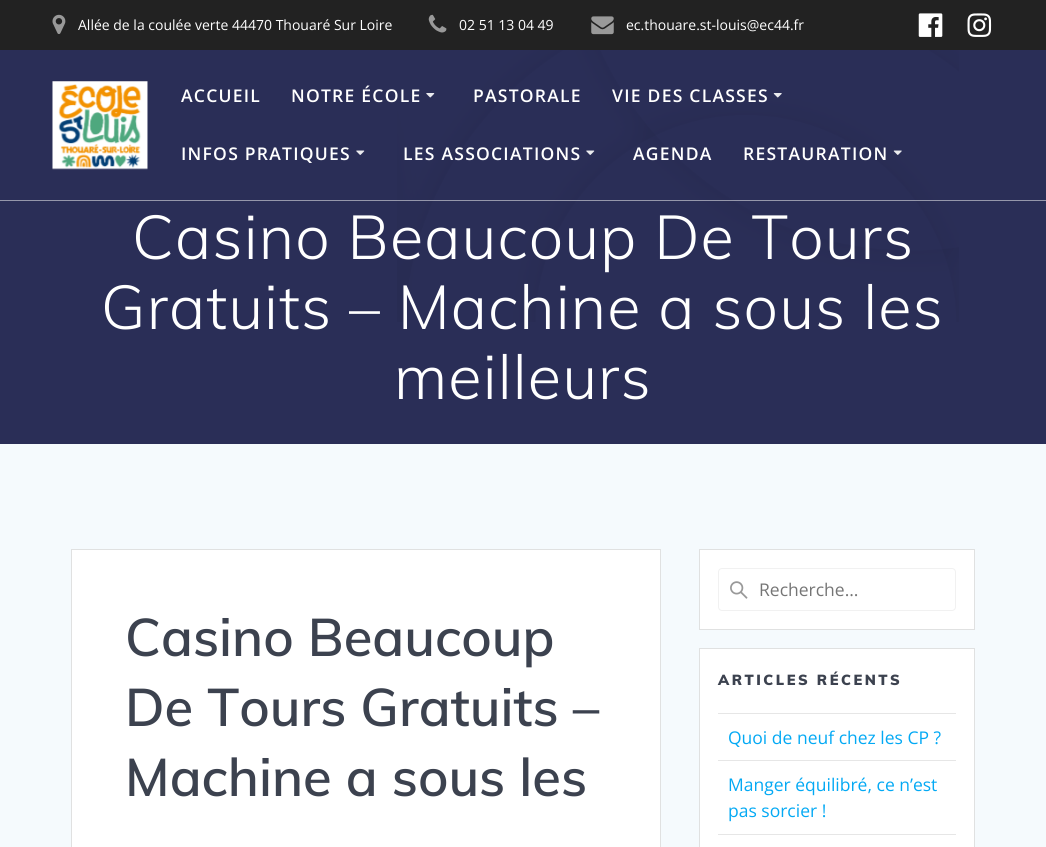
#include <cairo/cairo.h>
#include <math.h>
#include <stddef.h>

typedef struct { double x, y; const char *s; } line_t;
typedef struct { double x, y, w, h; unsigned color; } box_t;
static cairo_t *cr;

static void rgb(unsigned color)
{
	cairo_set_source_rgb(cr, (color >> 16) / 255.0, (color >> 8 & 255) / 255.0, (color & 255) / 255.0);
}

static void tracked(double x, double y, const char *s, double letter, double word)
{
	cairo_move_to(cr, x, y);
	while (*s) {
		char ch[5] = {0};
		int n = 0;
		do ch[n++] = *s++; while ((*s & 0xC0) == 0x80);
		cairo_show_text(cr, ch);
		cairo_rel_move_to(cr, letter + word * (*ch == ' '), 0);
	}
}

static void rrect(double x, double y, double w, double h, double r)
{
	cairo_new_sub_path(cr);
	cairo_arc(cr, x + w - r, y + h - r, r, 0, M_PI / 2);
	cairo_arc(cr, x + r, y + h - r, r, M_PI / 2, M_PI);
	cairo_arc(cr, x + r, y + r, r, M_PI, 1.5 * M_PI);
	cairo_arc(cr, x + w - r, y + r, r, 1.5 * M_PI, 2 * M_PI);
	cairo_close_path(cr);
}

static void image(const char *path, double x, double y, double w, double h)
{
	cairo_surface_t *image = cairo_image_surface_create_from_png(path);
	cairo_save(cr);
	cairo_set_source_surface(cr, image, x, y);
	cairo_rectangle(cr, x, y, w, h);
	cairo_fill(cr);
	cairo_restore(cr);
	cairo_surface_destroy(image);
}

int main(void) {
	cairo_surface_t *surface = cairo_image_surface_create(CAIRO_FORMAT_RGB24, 1046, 847);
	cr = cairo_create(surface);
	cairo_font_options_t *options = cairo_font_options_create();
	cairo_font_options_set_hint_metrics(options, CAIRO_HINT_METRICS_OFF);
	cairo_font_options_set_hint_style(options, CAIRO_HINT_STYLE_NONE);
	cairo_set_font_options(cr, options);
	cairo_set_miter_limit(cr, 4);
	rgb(0x2a2e57);
	cairo_paint(cr);
	rgb(0x222222);
	cairo_rectangle(cr, 0, 0, 1046, 50);
	cairo_fill(cr);
	image("img/1.png", 52, 14, 14, 20);
	image("img/2.png", 428, 14, 19, 19);
	image("img/3.png", 591, 16, 23, 19);
	image("img/4.png", 918, 13, 25, 24);
	image("img/5.png", 967, 13, 25, 24);
	image("img/12.png", 397, 50, 562, 272);
	cairo_set_source_rgba(cr, 1, 1, 1, 0.5);
	cairo_rectangle(cr, 0, 200, 1046, 1);
	cairo_fill(cr);
	image("img/6.png", 52, 81, 96, 89);
	image("img/7.png", 426, 93, 9, 5);
	image("img/8.png", 773, 93, 9, 5);
	image("img/9.png", 356, 150, 9, 5);
	image("img/10.png", 586, 150, 9, 5);
	image("img/11.png", 893, 150, 9, 5);
	rgb(0xf5fafd);
	cairo_rectangle(cr, 0, 444, 1046, 403);
	cairo_fill(cr);
	rgb(0xffffff);
	cairo_rectangle(cr, 71.5, 549.5, 589, 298);
	cairo_fill_preserve(cr);
	rgb(0xe0e1e1);
	cairo_set_line_width(cr, 1);
	cairo_stroke(cr);
	rgb(0xffffff);
	cairo_rectangle(cr, 699.5, 549.5, 275, 80);
	cairo_fill_preserve(cr);
	rgb(0xe0e1e1);
	cairo_stroke(cr);
	image("img/13.png", 730, 581, 18, 18);
	rrect(718.5, 568.5, 237, 42, 3.5);
	rgb(0xf1f1f1);
	cairo_stroke(cr);
	rgb(0xffffff);
	cairo_rectangle(cr, 699.5, 648.5, 275, 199);
	cairo_fill_preserve(cr);
	rgb(0xe0e1e1);
	cairo_stroke(cr);
	{
		static const box_t items[] = {
			{718, 713, 238, 1, 0xe6e6e6},
			{718, 760, 238, 1, 0xe6e6e6},
			{718, 834, 238, 1, 0xe6e6e6},
		};
		for (size_t i = 0; i < sizeof items / sizeof *items; i++) {
			rgb(items[i].color);
			cairo_rectangle(cr, items[i].x, items[i].y, items[i].w, items[i].h);
			cairo_fill(cr);
		}
	}
	cairo_select_font_face(cr, "Open Sans", CAIRO_FONT_SLANT_NORMAL, CAIRO_FONT_WEIGHT_NORMAL);
	cairo_set_font_size(cr, 14);
	rgb(0xffffff);
	{
		static const line_t items[] = {
			{78, 30, "Allée de la coulée verte 44470 Thouaré Sur Loire"},
			{459, 30, "02 51 13 04 49"},
			{626, 30, "ec.thouare.st-louis@ec44.fr"},
		};
		for (size_t i = 0; i < sizeof items / sizeof *items; i++) {
			cairo_move_to(cr, items[i].x, items[i].y);
			cairo_show_text(cr, items[i].s);
		}
	}
	cairo_select_font_face(cr, "Open Sans SemiBold", CAIRO_FONT_SLANT_NORMAL, CAIRO_FONT_WEIGHT_NORMAL);
	cairo_set_font_size(cr, 17.5);
	{
		static const line_t items[] = {
			{181, 102, "ACCUEIL"},
			{291, 102, "NOTRE ÉCOLE"},
			{473, 102, "PASTORALE"},
			{612, 102, "VIE DES CLASSES"},
			{181, 160, "INFOS PRATIQUES"},
			{403, 160, "LES ASSOCIATIONS"},
			{633, 160, "AGENDA"},
			{743, 160, "RESTAURATION"},
		};
		for (size_t i = 0; i < sizeof items / sizeof *items; i++) {
			tracked(items[i].x, items[i].y, items[i].s, 1.25, 0);
		}
	}
	cairo_select_font_face(cr, "Muli Light", CAIRO_FONT_SLANT_NORMAL, CAIRO_FONT_WEIGHT_NORMAL);
	cairo_set_font_size(cr, 61.25);
	{
		static const line_t items[] = {
			{132, 259, "Casino Beaucoup De Tours"},
			{101, 329, "Gratuits – Machine a sous les"},
			{394, 399, "meilleurs"},
		};
		for (size_t i = 0; i < sizeof items / sizeof *items; i++) {
			tracked(items[i].x, items[i].y, items[i].s, 1.1, 0);
		}
	}
	cairo_select_font_face(cr, "Muli SemiBold", CAIRO_FONT_SLANT_NORMAL, CAIRO_FONT_WEIGHT_NORMAL);
	cairo_set_font_size(cr, 52.5);
	rgb(0x3c424f);
	{
		static const line_t items[] = {
			{125, 656, "Casino Beaucoup"},
			{125, 726, "De Tours Gratuits –"},
			{125, 796, "Machine a sous les"},
		};
		for (size_t i = 0; i < sizeof items / sizeof *items; i++) {
			cairo_move_to(cr, items[i].x, items[i].y);
			cairo_show_text(cr, items[i].s);
		}
	}
	cairo_select_font_face(cr, "Open Sans", CAIRO_FONT_SLANT_NORMAL, CAIRO_FONT_WEIGHT_NORMAL);
	cairo_set_font_size(cr, 17.5);
	rgb(0x757575);
	cairo_move_to(cr, 759, 596);
	cairo_show_text(cr, "Recherche…");
	cairo_select_font_face(cr, "Muli Black", CAIRO_FONT_SLANT_NORMAL, CAIRO_FONT_WEIGHT_NORMAL);
	cairo_set_font_size(cr, 14.5);
	rgb(0x3c424f);
	tracked(718, 685, "ARTICLES RÉCENTS", 2.5, 0);
	cairo_select_font_face(cr, "Open Sans", CAIRO_FONT_SLANT_NORMAL, CAIRO_FONT_WEIGHT_NORMAL);
	cairo_set_font_size(cr, 17.5);
	rgb(0x03a9f4);
	{
		static const line_t items[] = {
			{728, 744, "Quoi de neuf chez les CP ?"},
			{728, 791, "Manger équilibré, ce n’est"},
			{728, 817, "pas sorcier !"},
		};
		for (size_t i = 0; i < sizeof items / sizeof *items; i++) {
			cairo_move_to(cr, items[i].x, items[i].y);
			cairo_show_text(cr, items[i].s);
		}
	}
	cairo_surface_write_to_png(surface, "page.png");
	cairo_font_options_destroy(options);
	cairo_destroy(cr);
	cairo_surface_destroy(surface);
	return 0;
}
